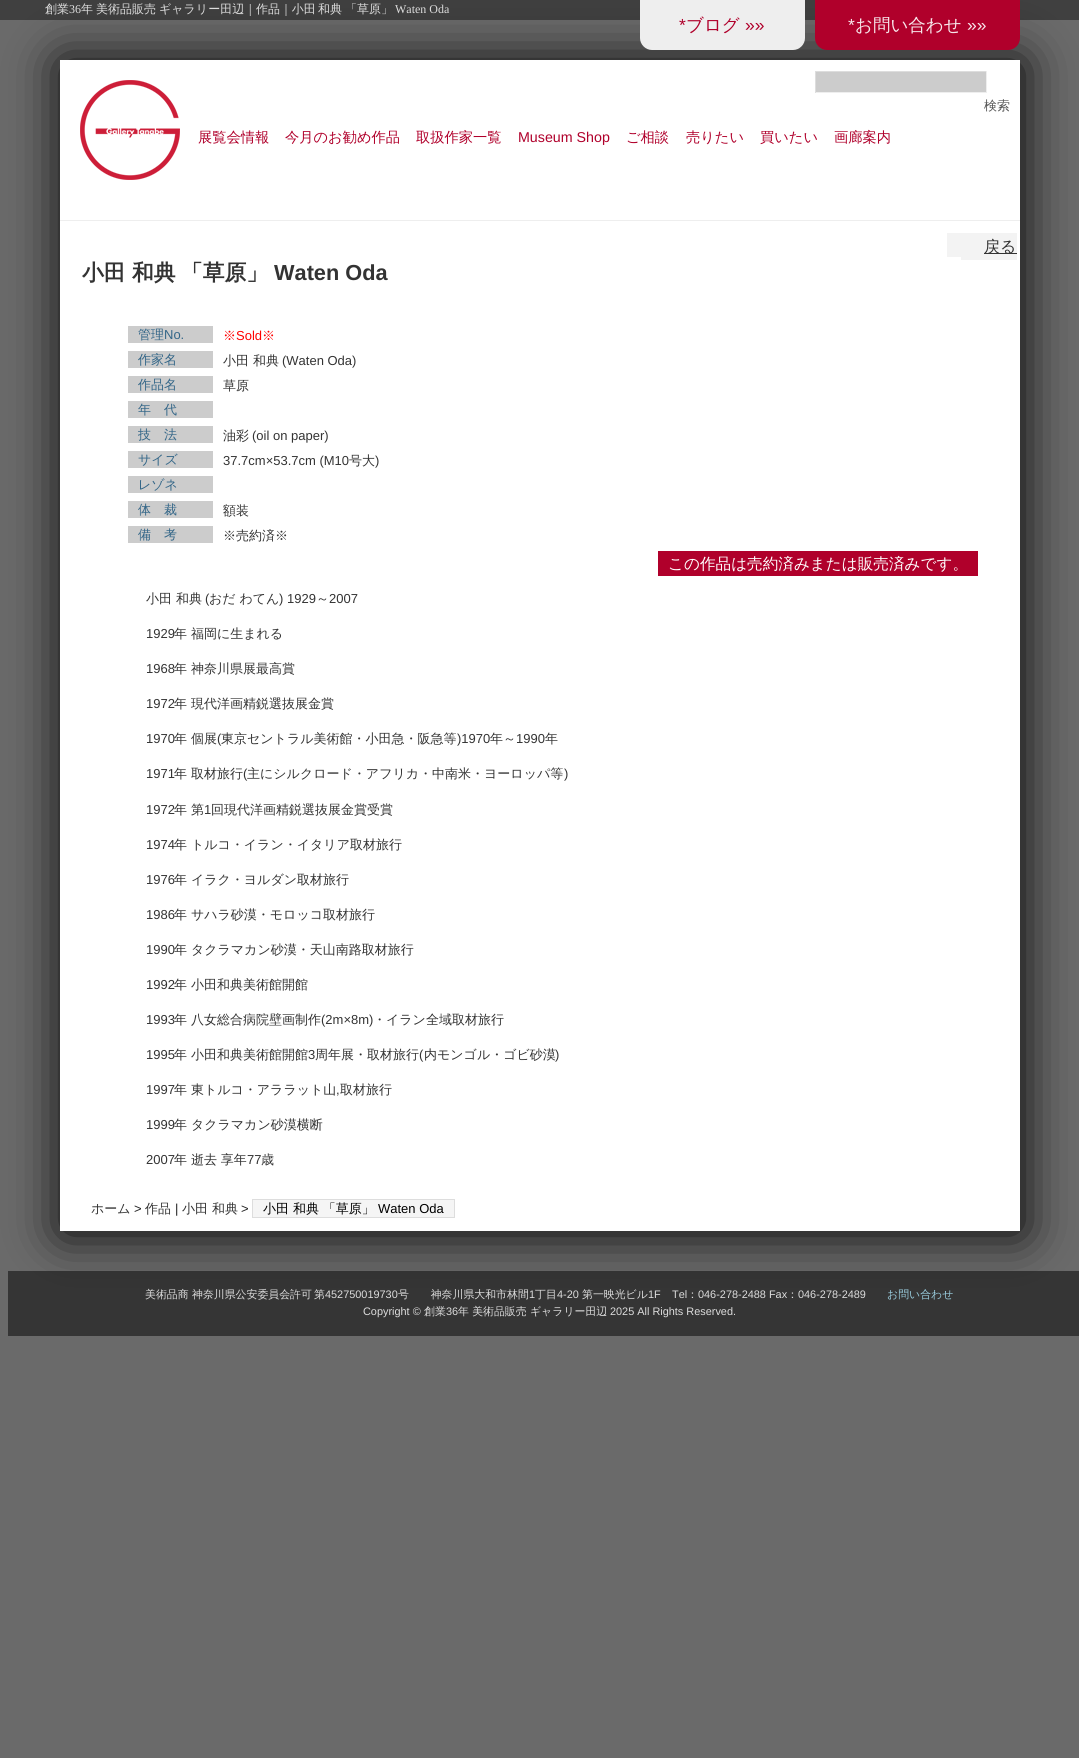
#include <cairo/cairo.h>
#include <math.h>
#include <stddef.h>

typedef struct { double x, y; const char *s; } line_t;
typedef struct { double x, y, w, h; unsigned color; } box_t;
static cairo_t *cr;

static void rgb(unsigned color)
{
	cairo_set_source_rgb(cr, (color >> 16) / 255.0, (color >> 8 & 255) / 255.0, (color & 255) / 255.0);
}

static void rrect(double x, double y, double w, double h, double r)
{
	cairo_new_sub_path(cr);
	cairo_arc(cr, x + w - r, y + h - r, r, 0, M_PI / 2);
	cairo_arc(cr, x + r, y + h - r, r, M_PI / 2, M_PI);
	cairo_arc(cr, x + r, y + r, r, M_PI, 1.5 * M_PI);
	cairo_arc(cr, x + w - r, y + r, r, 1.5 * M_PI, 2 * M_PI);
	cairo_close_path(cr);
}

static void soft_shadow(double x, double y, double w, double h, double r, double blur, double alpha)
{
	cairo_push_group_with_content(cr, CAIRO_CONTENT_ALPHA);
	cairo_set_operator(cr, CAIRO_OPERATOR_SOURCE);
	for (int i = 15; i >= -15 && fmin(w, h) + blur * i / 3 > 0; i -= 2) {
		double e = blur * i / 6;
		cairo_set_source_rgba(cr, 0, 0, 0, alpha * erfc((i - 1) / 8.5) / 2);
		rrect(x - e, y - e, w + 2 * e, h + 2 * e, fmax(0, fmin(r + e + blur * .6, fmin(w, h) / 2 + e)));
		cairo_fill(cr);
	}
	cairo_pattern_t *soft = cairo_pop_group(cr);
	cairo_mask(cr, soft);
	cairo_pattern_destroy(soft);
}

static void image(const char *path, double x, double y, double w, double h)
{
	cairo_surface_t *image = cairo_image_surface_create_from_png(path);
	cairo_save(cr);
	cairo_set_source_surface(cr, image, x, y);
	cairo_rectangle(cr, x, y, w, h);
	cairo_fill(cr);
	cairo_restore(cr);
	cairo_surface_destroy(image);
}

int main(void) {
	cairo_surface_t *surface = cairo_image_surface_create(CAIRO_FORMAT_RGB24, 1079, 1758);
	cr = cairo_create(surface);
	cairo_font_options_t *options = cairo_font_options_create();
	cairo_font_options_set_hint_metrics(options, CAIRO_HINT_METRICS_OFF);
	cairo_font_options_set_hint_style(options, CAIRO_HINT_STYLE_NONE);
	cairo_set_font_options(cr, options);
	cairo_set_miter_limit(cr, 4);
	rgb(0x6a6a6a);
	cairo_paint(cr);
	rgb(0x353535);
	cairo_rectangle(cr, 8, 1271, 1071, 65);
	cairo_fill(cr);
	rgb(0x000000);
	soft_shadow(62, 62, 960, 1171, 0, 25, 1);
	cairo_set_source_rgba(cr, 0, 0, 0, 0.4);
	cairo_rectangle(cr, 0, 0, 1079, 20);
	cairo_fill(cr);
	rgb(0xffffff);
	cairo_rectangle(cr, 60, 60, 960, 1171);
	cairo_fill(cr);
	rgb(0xeeeeee);
	cairo_new_path(cr);
	cairo_move_to(cr, 640, 0);
	cairo_line_to(cr, 805, 0);
	cairo_line_to(cr, 805, 38);
	cairo_curve_to(cr, 805, 44.5, 799.5, 50, 793, 50);
	cairo_line_to(cr, 652, 50);
	cairo_curve_to(cr, 645.5, 50, 640, 44.5, 640, 38);
	cairo_close_path(cr);
	cairo_fill(cr);
	rgb(0xb0002b);
	cairo_new_path(cr);
	cairo_move_to(cr, 815, 0);
	cairo_line_to(cr, 1020, 0);
	cairo_line_to(cr, 1020, 38);
	cairo_curve_to(cr, 1020, 44.5, 1014.5, 50, 1008, 50);
	cairo_line_to(cr, 827, 50);
	cairo_curve_to(cr, 820.5, 50, 815, 44.5, 815, 38);
	cairo_close_path(cr);
	cairo_fill(cr);
	image("img/1.png", 80, 80, 100, 100);
	{
		static const box_t items[] = {
			{816, 72, 170, 20, 0xcccccc},
			{815, 71, 172, 1, 0xdddddd},
			{986, 71, 1, 22, 0xeeeeee},
			{815, 92, 172, 1, 0xeeeeee},
			{815, 71, 1, 22, 0xdddddd},
			{60, 220, 960, 1, 0xeeeeee},
			{947, 233, 70, 27, 0xf3f3f3},
			{984, 253, 33, 1, 0x333333},
			{947, 257, 14, 3, 0xffffff},
			{128, 326, 85, 17, 0xcccccc},
			{128, 351, 85, 17, 0xcccccc},
			{128, 376, 85, 17, 0xcccccc},
			{128, 401, 85, 17, 0xcccccc},
			{128, 426, 85, 17, 0xcccccc},
			{128, 451, 85, 17, 0xcccccc},
			{128, 476, 85, 17, 0xcccccc},
			{128, 501, 85, 17, 0xcccccc},
			{128, 526, 85, 17, 0xcccccc},
			{658, 551, 320, 25, 0xb0002b},
		};
		for (size_t i = 0; i < sizeof items / sizeof *items; i++) {
			rgb(items[i].color);
			cairo_rectangle(cr, items[i].x, items[i].y, items[i].w, items[i].h);
			cairo_fill(cr);
		}
	}
	rgb(0xf5f5f5);
	cairo_rectangle(cr, 252.5, 1199.5, 202, 18);
	cairo_fill_preserve(cr);
	rgb(0xdddddd);
	cairo_set_line_width(cr, 1);
	cairo_stroke(cr);
	cairo_select_font_face(cr, "WenQuanYi Zen Hei Medium", CAIRO_FONT_SLANT_NORMAL, CAIRO_FONT_WEIGHT_NORMAL);
	cairo_set_font_size(cr, 12);
	cairo_move_to(cr, 45, 13);
	cairo_show_text(cr, "創業");
	cairo_select_font_face(cr, "Liberation Serif", CAIRO_FONT_SLANT_NORMAL, CAIRO_FONT_WEIGHT_NORMAL);
	cairo_move_to(cr, 69, 13);
	cairo_show_text(cr, "36");
	cairo_select_font_face(cr, "WenQuanYi Zen Hei Medium", CAIRO_FONT_SLANT_NORMAL, CAIRO_FONT_WEIGHT_NORMAL);
	{
		static const line_t items[] = {
			{81, 13, "年"},
			{96, 13, "美術品販売"},
			{159, 13, "ギャラリー田辺｜作品｜小田"},
			{318, 13, "和典"},
			{345, 13, "「草原」"},
		};
		for (size_t i = 0; i < sizeof items / sizeof *items; i++) {
			cairo_move_to(cr, items[i].x, items[i].y);
			cairo_show_text(cr, items[i].s);
		}
	}
	cairo_select_font_face(cr, "Liberation Serif", CAIRO_FONT_SLANT_NORMAL, CAIRO_FONT_WEIGHT_NORMAL);
	cairo_move_to(cr, 395, 13);
	cairo_show_text(cr, "Waten Oda");
	cairo_select_font_face(cr, "Liberation Sans", CAIRO_FONT_SLANT_NORMAL, CAIRO_FONT_WEIGHT_NORMAL);
	cairo_set_font_size(cr, 17.5);
	rgb(0xb0002b);
	cairo_move_to(cr, 679, 31);
	cairo_show_text(cr, "*");
	cairo_select_font_face(cr, "WenQuanYi Zen Hei Medium", CAIRO_FONT_SLANT_NORMAL, CAIRO_FONT_WEIGHT_NORMAL);
	cairo_move_to(cr, 686, 31);
	cairo_show_text(cr, "ブログ");
	cairo_select_font_face(cr, "Liberation Sans", CAIRO_FONT_SLANT_NORMAL, CAIRO_FONT_WEIGHT_NORMAL);
	cairo_move_to(cr, 745, 31);
	cairo_show_text(cr, "»»");
	rgb(0xf7e6ea);
	cairo_move_to(cr, 848, 31);
	cairo_show_text(cr, "*");
	cairo_select_font_face(cr, "WenQuanYi Zen Hei Medium", CAIRO_FONT_SLANT_NORMAL, CAIRO_FONT_WEIGHT_NORMAL);
	cairo_move_to(cr, 855, 31);
	cairo_show_text(cr, "お問い合わせ");
	cairo_select_font_face(cr, "Liberation Sans", CAIRO_FONT_SLANT_NORMAL, CAIRO_FONT_WEIGHT_NORMAL);
	cairo_move_to(cr, 967, 31);
	cairo_show_text(cr, "»»");
	cairo_select_font_face(cr, "WenQuanYi Zen Hei Medium", CAIRO_FONT_SLANT_NORMAL, CAIRO_FONT_WEIGHT_NORMAL);
	cairo_set_font_size(cr, 13);
	rgb(0x555555);
	cairo_move_to(cr, 984, 110);
	cairo_show_text(cr, "検索");
	cairo_set_font_size(cr, 14.25);
	rgb(0xb0002b);
	{
		static const line_t items[] = {
			{198, 142, "展覧会情報"},
			{285, 142, "今月のお勧め作品"},
			{416, 142, "取扱作家一覧"},
		};
		for (size_t i = 0; i < sizeof items / sizeof *items; i++) {
			cairo_move_to(cr, items[i].x, items[i].y);
			cairo_show_text(cr, items[i].s);
		}
	}
	cairo_select_font_face(cr, "Liberation Sans", CAIRO_FONT_SLANT_NORMAL, CAIRO_FONT_WEIGHT_NORMAL);
	cairo_move_to(cr, 518, 142);
	cairo_show_text(cr, "Museum Shop");
	cairo_select_font_face(cr, "WenQuanYi Zen Hei Medium", CAIRO_FONT_SLANT_NORMAL, CAIRO_FONT_WEIGHT_NORMAL);
	{
		static const line_t items[] = {
			{626, 142, "ご相談"},
			{686, 142, "売りたい"},
			{760, 142, "買いたい"},
			{834, 142, "画廊案内"},
		};
		for (size_t i = 0; i < sizeof items / sizeof *items; i++) {
			cairo_move_to(cr, items[i].x, items[i].y);
			cairo_show_text(cr, items[i].s);
		}
	}
	cairo_set_font_size(cr, 16);
	rgb(0x333333);
	cairo_move_to(cr, 984, 252);
	cairo_show_text(cr, "戻る");
	cairo_select_font_face(cr, "WenQuanYi Zen Hei", CAIRO_FONT_SLANT_NORMAL, CAIRO_FONT_WEIGHT_BOLD);
	cairo_set_font_size(cr, 21.75);
	{
		static const line_t items[] = {
			{82, 280, "小田"},
			{132, 280, "和典"},
			{181, 280, "「草原」"},
		};
		for (size_t i = 0; i < sizeof items / sizeof *items; i++) {
			cairo_move_to(cr, items[i].x, items[i].y);
			cairo_show_text(cr, items[i].s);
		}
	}
	cairo_select_font_face(cr, "Liberation Sans", CAIRO_FONT_SLANT_NORMAL, CAIRO_FONT_WEIGHT_BOLD);
	cairo_move_to(cr, 274, 280);
	cairo_show_text(cr, "Waten Oda");
	cairo_select_font_face(cr, "WenQuanYi Zen Hei Medium", CAIRO_FONT_SLANT_NORMAL, CAIRO_FONT_WEIGHT_NORMAL);
	cairo_set_font_size(cr, 13);
	rgb(0x336688);
	cairo_move_to(cr, 138, 339);
	cairo_show_text(cr, "管理");
	cairo_select_font_face(cr, "Liberation Sans", CAIRO_FONT_SLANT_NORMAL, CAIRO_FONT_WEIGHT_NORMAL);
	cairo_move_to(cr, 164, 339);
	cairo_show_text(cr, "No.");
	cairo_select_font_face(cr, "WenQuanYi Zen Hei Medium", CAIRO_FONT_SLANT_NORMAL, CAIRO_FONT_WEIGHT_NORMAL);
	rgb(0xff0000);
	cairo_move_to(cr, 223, 340);
	cairo_show_text(cr, "※");
	cairo_select_font_face(cr, "Liberation Sans", CAIRO_FONT_SLANT_NORMAL, CAIRO_FONT_WEIGHT_NORMAL);
	cairo_move_to(cr, 236, 340);
	cairo_show_text(cr, "Sold");
	cairo_select_font_face(cr, "WenQuanYi Zen Hei Medium", CAIRO_FONT_SLANT_NORMAL, CAIRO_FONT_WEIGHT_NORMAL);
	cairo_move_to(cr, 262, 340);
	cairo_show_text(cr, "※");
	rgb(0x336688);
	cairo_move_to(cr, 138, 364);
	cairo_show_text(cr, "作家名");
	rgb(0x333333);
	cairo_move_to(cr, 223, 365);
	cairo_show_text(cr, "小田 和典");
	cairo_select_font_face(cr, "Liberation Sans", CAIRO_FONT_SLANT_NORMAL, CAIRO_FONT_WEIGHT_NORMAL);
	cairo_move_to(cr, 282, 365);
	cairo_show_text(cr, "(Waten Oda)");
	cairo_select_font_face(cr, "WenQuanYi Zen Hei Medium", CAIRO_FONT_SLANT_NORMAL, CAIRO_FONT_WEIGHT_NORMAL);
	rgb(0x336688);
	cairo_move_to(cr, 138, 389);
	cairo_show_text(cr, "作品名");
	rgb(0x333333);
	cairo_move_to(cr, 223, 390);
	cairo_show_text(cr, "草原");
	rgb(0x336688);
	cairo_move_to(cr, 138, 414);
	cairo_show_text(cr, "年　代");
	cairo_move_to(cr, 138, 439);
	cairo_show_text(cr, "技　法");
	rgb(0x333333);
	cairo_move_to(cr, 223, 440);
	cairo_show_text(cr, "油彩");
	cairo_select_font_face(cr, "Liberation Sans", CAIRO_FONT_SLANT_NORMAL, CAIRO_FONT_WEIGHT_NORMAL);
	cairo_move_to(cr, 252, 440);
	cairo_show_text(cr, "(oil on paper)");
	cairo_select_font_face(cr, "WenQuanYi Zen Hei Medium", CAIRO_FONT_SLANT_NORMAL, CAIRO_FONT_WEIGHT_NORMAL);
	rgb(0x336688);
	cairo_move_to(cr, 138, 464);
	cairo_show_text(cr, "サイズ");
	cairo_select_font_face(cr, "Liberation Sans", CAIRO_FONT_SLANT_NORMAL, CAIRO_FONT_WEIGHT_NORMAL);
	rgb(0x333333);
	cairo_move_to(cr, 223, 465);
	cairo_show_text(cr, "37.7cm×53.7cm (M10");
	cairo_select_font_face(cr, "WenQuanYi Zen Hei Medium", CAIRO_FONT_SLANT_NORMAL, CAIRO_FONT_WEIGHT_NORMAL);
	cairo_move_to(cr, 349, 465);
	cairo_show_text(cr, "号大");
	cairo_select_font_face(cr, "Liberation Sans", CAIRO_FONT_SLANT_NORMAL, CAIRO_FONT_WEIGHT_NORMAL);
	cairo_move_to(cr, 375, 465);
	cairo_show_text(cr, ")");
	cairo_select_font_face(cr, "WenQuanYi Zen Hei Medium", CAIRO_FONT_SLANT_NORMAL, CAIRO_FONT_WEIGHT_NORMAL);
	rgb(0x336688);
	cairo_move_to(cr, 138, 489);
	cairo_show_text(cr, "レゾネ");
	cairo_move_to(cr, 138, 514);
	cairo_show_text(cr, "体　裁");
	rgb(0x333333);
	cairo_move_to(cr, 223, 515);
	cairo_show_text(cr, "額装");
	rgb(0x336688);
	cairo_move_to(cr, 138, 539);
	cairo_show_text(cr, "備　考");
	rgb(0x333333);
	cairo_move_to(cr, 223, 540);
	cairo_show_text(cr, "※売約済※");
	cairo_set_font_size(cr, 15.6);
	rgb(0xffffff);
	cairo_move_to(cr, 668, 569);
	cairo_show_text(cr, "この作品は売約済みまたは販売済みです。");
	cairo_set_font_size(cr, 13);
	rgb(0x333333);
	cairo_move_to(cr, 146, 603);
	cairo_show_text(cr, "小田 和典");
	cairo_select_font_face(cr, "Liberation Sans", CAIRO_FONT_SLANT_NORMAL, CAIRO_FONT_WEIGHT_NORMAL);
	cairo_move_to(cr, 205, 603);
	cairo_show_text(cr, "(");
	cairo_select_font_face(cr, "WenQuanYi Zen Hei Medium", CAIRO_FONT_SLANT_NORMAL, CAIRO_FONT_WEIGHT_NORMAL);
	cairo_move_to(cr, 209, 603);
	cairo_show_text(cr, "おだ わてん");
	cairo_select_font_face(cr, "Liberation Sans", CAIRO_FONT_SLANT_NORMAL, CAIRO_FONT_WEIGHT_NORMAL);
	cairo_move_to(cr, 279, 603);
	cairo_show_text(cr, ") 1929");
	cairo_select_font_face(cr, "WenQuanYi Zen Hei Medium", CAIRO_FONT_SLANT_NORMAL, CAIRO_FONT_WEIGHT_NORMAL);
	cairo_move_to(cr, 316, 603);
	cairo_show_text(cr, "～");
	cairo_select_font_face(cr, "Liberation Sans", CAIRO_FONT_SLANT_NORMAL, CAIRO_FONT_WEIGHT_NORMAL);
	cairo_move_to(cr, 329, 603);
	cairo_show_text(cr, "2007");
	cairo_move_to(cr, 146, 638);
	cairo_show_text(cr, "1929");
	cairo_select_font_face(cr, "WenQuanYi Zen Hei Medium", CAIRO_FONT_SLANT_NORMAL, CAIRO_FONT_WEIGHT_NORMAL);
	cairo_move_to(cr, 174, 638);
	cairo_show_text(cr, "年 福岡に生まれる");
	cairo_select_font_face(cr, "Liberation Sans", CAIRO_FONT_SLANT_NORMAL, CAIRO_FONT_WEIGHT_NORMAL);
	cairo_move_to(cr, 146, 673);
	cairo_show_text(cr, "1968");
	cairo_select_font_face(cr, "WenQuanYi Zen Hei Medium", CAIRO_FONT_SLANT_NORMAL, CAIRO_FONT_WEIGHT_NORMAL);
	cairo_move_to(cr, 174, 673);
	cairo_show_text(cr, "年 神奈川県展最高賞");
	cairo_select_font_face(cr, "Liberation Sans", CAIRO_FONT_SLANT_NORMAL, CAIRO_FONT_WEIGHT_NORMAL);
	cairo_move_to(cr, 146, 708);
	cairo_show_text(cr, "1972");
	cairo_select_font_face(cr, "WenQuanYi Zen Hei Medium", CAIRO_FONT_SLANT_NORMAL, CAIRO_FONT_WEIGHT_NORMAL);
	cairo_move_to(cr, 174, 708);
	cairo_show_text(cr, "年 現代洋画精鋭選抜展金賞");
	cairo_select_font_face(cr, "Liberation Sans", CAIRO_FONT_SLANT_NORMAL, CAIRO_FONT_WEIGHT_NORMAL);
	cairo_move_to(cr, 146, 743);
	cairo_show_text(cr, "1970");
	cairo_select_font_face(cr, "WenQuanYi Zen Hei Medium", CAIRO_FONT_SLANT_NORMAL, CAIRO_FONT_WEIGHT_NORMAL);
	cairo_move_to(cr, 174, 743);
	cairo_show_text(cr, "年 個展");
	cairo_select_font_face(cr, "Liberation Sans", CAIRO_FONT_SLANT_NORMAL, CAIRO_FONT_WEIGHT_NORMAL);
	cairo_move_to(cr, 217, 743);
	cairo_show_text(cr, "(");
	cairo_select_font_face(cr, "WenQuanYi Zen Hei Medium", CAIRO_FONT_SLANT_NORMAL, CAIRO_FONT_WEIGHT_NORMAL);
	cairo_move_to(cr, 221, 743);
	cairo_show_text(cr, "東京セントラル美術館・小田急・阪急等");
	cairo_select_font_face(cr, "Liberation Sans", CAIRO_FONT_SLANT_NORMAL, CAIRO_FONT_WEIGHT_NORMAL);
	cairo_move_to(cr, 457, 743);
	cairo_show_text(cr, ")1970");
	cairo_select_font_face(cr, "WenQuanYi Zen Hei Medium", CAIRO_FONT_SLANT_NORMAL, CAIRO_FONT_WEIGHT_NORMAL);
	cairo_move_to(cr, 490, 743);
	cairo_show_text(cr, "年～");
	cairo_select_font_face(cr, "Liberation Sans", CAIRO_FONT_SLANT_NORMAL, CAIRO_FONT_WEIGHT_NORMAL);
	cairo_move_to(cr, 516, 743);
	cairo_show_text(cr, "1990");
	cairo_select_font_face(cr, "WenQuanYi Zen Hei Medium", CAIRO_FONT_SLANT_NORMAL, CAIRO_FONT_WEIGHT_NORMAL);
	cairo_move_to(cr, 545, 743);
	cairo_show_text(cr, "年");
	cairo_select_font_face(cr, "Liberation Sans", CAIRO_FONT_SLANT_NORMAL, CAIRO_FONT_WEIGHT_NORMAL);
	cairo_move_to(cr, 146, 778);
	cairo_show_text(cr, "1971");
	cairo_select_font_face(cr, "WenQuanYi Zen Hei Medium", CAIRO_FONT_SLANT_NORMAL, CAIRO_FONT_WEIGHT_NORMAL);
	cairo_move_to(cr, 174, 778);
	cairo_show_text(cr, "年 取材旅行");
	cairo_select_font_face(cr, "Liberation Sans", CAIRO_FONT_SLANT_NORMAL, CAIRO_FONT_WEIGHT_NORMAL);
	cairo_move_to(cr, 243, 778);
	cairo_show_text(cr, "(");
	cairo_select_font_face(cr, "WenQuanYi Zen Hei Medium", CAIRO_FONT_SLANT_NORMAL, CAIRO_FONT_WEIGHT_NORMAL);
	cairo_move_to(cr, 247, 778);
	cairo_show_text(cr, "主にシルクロード・アフリカ・中南米・ヨーロッパ等");
	cairo_select_font_face(cr, "Liberation Sans", CAIRO_FONT_SLANT_NORMAL, CAIRO_FONT_WEIGHT_NORMAL);
	cairo_move_to(cr, 564, 778);
	cairo_show_text(cr, ")");
	cairo_move_to(cr, 146, 814);
	cairo_show_text(cr, "1972");
	cairo_select_font_face(cr, "WenQuanYi Zen Hei Medium", CAIRO_FONT_SLANT_NORMAL, CAIRO_FONT_WEIGHT_NORMAL);
	cairo_move_to(cr, 174, 814);
	cairo_show_text(cr, "年 第");
	cairo_select_font_face(cr, "Liberation Sans", CAIRO_FONT_SLANT_NORMAL, CAIRO_FONT_WEIGHT_NORMAL);
	cairo_move_to(cr, 204, 814);
	cairo_show_text(cr, "1");
	cairo_select_font_face(cr, "WenQuanYi Zen Hei Medium", CAIRO_FONT_SLANT_NORMAL, CAIRO_FONT_WEIGHT_NORMAL);
	cairo_move_to(cr, 211, 814);
	cairo_show_text(cr, "回現代洋画精鋭選抜展金賞受賞");
	cairo_select_font_face(cr, "Liberation Sans", CAIRO_FONT_SLANT_NORMAL, CAIRO_FONT_WEIGHT_NORMAL);
	cairo_move_to(cr, 146, 849);
	cairo_show_text(cr, "1974");
	cairo_select_font_face(cr, "WenQuanYi Zen Hei Medium", CAIRO_FONT_SLANT_NORMAL, CAIRO_FONT_WEIGHT_NORMAL);
	cairo_move_to(cr, 174, 849);
	cairo_show_text(cr, "年 トルコ・イラン・イタリア取材旅行");
	cairo_select_font_face(cr, "Liberation Sans", CAIRO_FONT_SLANT_NORMAL, CAIRO_FONT_WEIGHT_NORMAL);
	cairo_move_to(cr, 146, 884);
	cairo_show_text(cr, "1976");
	cairo_select_font_face(cr, "WenQuanYi Zen Hei Medium", CAIRO_FONT_SLANT_NORMAL, CAIRO_FONT_WEIGHT_NORMAL);
	cairo_move_to(cr, 174, 884);
	cairo_show_text(cr, "年 イラク・ヨルダン取材旅行");
	cairo_select_font_face(cr, "Liberation Sans", CAIRO_FONT_SLANT_NORMAL, CAIRO_FONT_WEIGHT_NORMAL);
	cairo_move_to(cr, 146, 919);
	cairo_show_text(cr, "1986");
	cairo_select_font_face(cr, "WenQuanYi Zen Hei Medium", CAIRO_FONT_SLANT_NORMAL, CAIRO_FONT_WEIGHT_NORMAL);
	cairo_move_to(cr, 174, 919);
	cairo_show_text(cr, "年 サハラ砂漠・モロッコ取材旅行");
	cairo_select_font_face(cr, "Liberation Sans", CAIRO_FONT_SLANT_NORMAL, CAIRO_FONT_WEIGHT_NORMAL);
	cairo_move_to(cr, 146, 954);
	cairo_show_text(cr, "1990");
	cairo_select_font_face(cr, "WenQuanYi Zen Hei Medium", CAIRO_FONT_SLANT_NORMAL, CAIRO_FONT_WEIGHT_NORMAL);
	cairo_move_to(cr, 174, 954);
	cairo_show_text(cr, "年 タクラマカン砂漠・天山南路取材旅行");
	cairo_select_font_face(cr, "Liberation Sans", CAIRO_FONT_SLANT_NORMAL, CAIRO_FONT_WEIGHT_NORMAL);
	cairo_move_to(cr, 146, 989);
	cairo_show_text(cr, "1992");
	cairo_select_font_face(cr, "WenQuanYi Zen Hei Medium", CAIRO_FONT_SLANT_NORMAL, CAIRO_FONT_WEIGHT_NORMAL);
	cairo_move_to(cr, 174, 989);
	cairo_show_text(cr, "年 小田和典美術館開館");
	cairo_select_font_face(cr, "Liberation Sans", CAIRO_FONT_SLANT_NORMAL, CAIRO_FONT_WEIGHT_NORMAL);
	cairo_move_to(cr, 146, 1024);
	cairo_show_text(cr, "1993");
	cairo_select_font_face(cr, "WenQuanYi Zen Hei Medium", CAIRO_FONT_SLANT_NORMAL, CAIRO_FONT_WEIGHT_NORMAL);
	cairo_move_to(cr, 174, 1024);
	cairo_show_text(cr, "年 八女総合病院壁画制作");
	cairo_select_font_face(cr, "Liberation Sans", CAIRO_FONT_SLANT_NORMAL, CAIRO_FONT_WEIGHT_NORMAL);
	cairo_move_to(cr, 321, 1024);
	cairo_show_text(cr, "(2m×8m)");
	cairo_select_font_face(cr, "WenQuanYi Zen Hei Medium", CAIRO_FONT_SLANT_NORMAL, CAIRO_FONT_WEIGHT_NORMAL);
	cairo_move_to(cr, 373, 1024);
	cairo_show_text(cr, "・イラン全域取材旅行");
	cairo_select_font_face(cr, "Liberation Sans", CAIRO_FONT_SLANT_NORMAL, CAIRO_FONT_WEIGHT_NORMAL);
	cairo_move_to(cr, 146, 1059);
	cairo_show_text(cr, "1995");
	cairo_select_font_face(cr, "WenQuanYi Zen Hei Medium", CAIRO_FONT_SLANT_NORMAL, CAIRO_FONT_WEIGHT_NORMAL);
	cairo_move_to(cr, 174, 1059);
	cairo_show_text(cr, "年 小田和典美術館開館");
	cairo_select_font_face(cr, "Liberation Sans", CAIRO_FONT_SLANT_NORMAL, CAIRO_FONT_WEIGHT_NORMAL);
	cairo_move_to(cr, 308, 1059);
	cairo_show_text(cr, "3");
	cairo_select_font_face(cr, "WenQuanYi Zen Hei Medium", CAIRO_FONT_SLANT_NORMAL, CAIRO_FONT_WEIGHT_NORMAL);
	cairo_move_to(cr, 315, 1059);
	cairo_show_text(cr, "周年展・取材旅行");
	cairo_select_font_face(cr, "Liberation Sans", CAIRO_FONT_SLANT_NORMAL, CAIRO_FONT_WEIGHT_NORMAL);
	cairo_move_to(cr, 419, 1059);
	cairo_show_text(cr, "(");
	cairo_select_font_face(cr, "WenQuanYi Zen Hei Medium", CAIRO_FONT_SLANT_NORMAL, CAIRO_FONT_WEIGHT_NORMAL);
	cairo_move_to(cr, 424, 1059);
	cairo_show_text(cr, "内モンゴル・ゴビ砂漠");
	cairo_select_font_face(cr, "Liberation Sans", CAIRO_FONT_SLANT_NORMAL, CAIRO_FONT_WEIGHT_NORMAL);
	cairo_move_to(cr, 555, 1059);
	cairo_show_text(cr, ")");
	cairo_move_to(cr, 146, 1094);
	cairo_show_text(cr, "1997");
	cairo_select_font_face(cr, "WenQuanYi Zen Hei Medium", CAIRO_FONT_SLANT_NORMAL, CAIRO_FONT_WEIGHT_NORMAL);
	cairo_move_to(cr, 174, 1094);
	cairo_show_text(cr, "年 東トルコ・アララット山");
	cairo_select_font_face(cr, "Liberation Sans", CAIRO_FONT_SLANT_NORMAL, CAIRO_FONT_WEIGHT_NORMAL);
	cairo_move_to(cr, 336, 1094);
	cairo_show_text(cr, ",");
	cairo_select_font_face(cr, "WenQuanYi Zen Hei Medium", CAIRO_FONT_SLANT_NORMAL, CAIRO_FONT_WEIGHT_NORMAL);
	cairo_move_to(cr, 340, 1094);
	cairo_show_text(cr, "取材旅行");
	cairo_select_font_face(cr, "Liberation Sans", CAIRO_FONT_SLANT_NORMAL, CAIRO_FONT_WEIGHT_NORMAL);
	cairo_move_to(cr, 146, 1129);
	cairo_show_text(cr, "1999");
	cairo_select_font_face(cr, "WenQuanYi Zen Hei Medium", CAIRO_FONT_SLANT_NORMAL, CAIRO_FONT_WEIGHT_NORMAL);
	cairo_move_to(cr, 174, 1129);
	cairo_show_text(cr, "年 タクラマカン砂漠横断");
	cairo_select_font_face(cr, "Liberation Sans", CAIRO_FONT_SLANT_NORMAL, CAIRO_FONT_WEIGHT_NORMAL);
	cairo_move_to(cr, 146, 1164);
	cairo_show_text(cr, "2007");
	cairo_select_font_face(cr, "WenQuanYi Zen Hei Medium", CAIRO_FONT_SLANT_NORMAL, CAIRO_FONT_WEIGHT_NORMAL);
	cairo_move_to(cr, 174, 1164);
	cairo_show_text(cr, "年 逝去 享年");
	cairo_select_font_face(cr, "Liberation Sans", CAIRO_FONT_SLANT_NORMAL, CAIRO_FONT_WEIGHT_NORMAL);
	cairo_move_to(cr, 247, 1164);
	cairo_show_text(cr, "77");
	cairo_select_font_face(cr, "WenQuanYi Zen Hei Medium", CAIRO_FONT_SLANT_NORMAL, CAIRO_FONT_WEIGHT_NORMAL);
	cairo_move_to(cr, 261, 1164);
	cairo_show_text(cr, "歳");
	cairo_move_to(cr, 91, 1213);
	cairo_show_text(cr, "ホーム");
	cairo_select_font_face(cr, "Liberation Sans", CAIRO_FONT_SLANT_NORMAL, CAIRO_FONT_WEIGHT_NORMAL);
	rgb(0x222222);
	cairo_move_to(cr, 134, 1213);
	cairo_show_text(cr, ">");
	cairo_select_font_face(cr, "WenQuanYi Zen Hei Medium", CAIRO_FONT_SLANT_NORMAL, CAIRO_FONT_WEIGHT_NORMAL);
	rgb(0x333333);
	cairo_move_to(cr, 145, 1213);
	cairo_show_text(cr, "作品");
	cairo_select_font_face(cr, "Liberation Sans", CAIRO_FONT_SLANT_NORMAL, CAIRO_FONT_WEIGHT_NORMAL);
	rgb(0x222222);
	cairo_move_to(cr, 175, 1213);
	cairo_show_text(cr, "|");
	cairo_select_font_face(cr, "WenQuanYi Zen Hei Medium", CAIRO_FONT_SLANT_NORMAL, CAIRO_FONT_WEIGHT_NORMAL);
	rgb(0x333333);
	cairo_move_to(cr, 182, 1213);
	cairo_show_text(cr, "小田 和典");
	cairo_select_font_face(cr, "Liberation Sans", CAIRO_FONT_SLANT_NORMAL, CAIRO_FONT_WEIGHT_NORMAL);
	rgb(0x222222);
	cairo_move_to(cr, 241, 1213);
	cairo_show_text(cr, ">");
	cairo_select_font_face(cr, "WenQuanYi Zen Hei Medium", CAIRO_FONT_SLANT_NORMAL, CAIRO_FONT_WEIGHT_NORMAL);
	rgb(0x000000);
	cairo_move_to(cr, 263, 1213);
	cairo_show_text(cr, "小田 和典 「草原」");
	cairo_select_font_face(cr, "Liberation Sans", CAIRO_FONT_SLANT_NORMAL, CAIRO_FONT_WEIGHT_NORMAL);
	cairo_move_to(cr, 378, 1213);
	cairo_show_text(cr, "Waten Oda");
	cairo_select_font_face(cr, "WenQuanYi Zen Hei Medium", CAIRO_FONT_SLANT_NORMAL, CAIRO_FONT_WEIGHT_NORMAL);
	cairo_set_font_size(cr, 10.9);
	rgb(0xdddddd);
	{
		static const line_t items[] = {
			{145, 1298, "美術品商"},
			{192, 1298, "神奈川県公安委員会許可"},
			{314, 1298, "第"},
		};
		for (size_t i = 0; i < sizeof items / sizeof *items; i++) {
			cairo_move_to(cr, items[i].x, items[i].y);
			cairo_show_text(cr, items[i].s);
		}
	}
	cairo_select_font_face(cr, "Liberation Sans", CAIRO_FONT_SLANT_NORMAL, CAIRO_FONT_WEIGHT_NORMAL);
	cairo_move_to(cr, 325, 1298);
	cairo_show_text(cr, "452750019730");
	cairo_select_font_face(cr, "WenQuanYi Zen Hei Medium", CAIRO_FONT_SLANT_NORMAL, CAIRO_FONT_WEIGHT_NORMAL);
	cairo_move_to(cr, 398, 1298);
	cairo_show_text(cr, "号　　神奈川県大和市林間");
	cairo_select_font_face(cr, "Liberation Sans", CAIRO_FONT_SLANT_NORMAL, CAIRO_FONT_WEIGHT_NORMAL);
	cairo_move_to(cr, 529, 1298);
	cairo_show_text(cr, "1");
	cairo_select_font_face(cr, "WenQuanYi Zen Hei Medium", CAIRO_FONT_SLANT_NORMAL, CAIRO_FONT_WEIGHT_NORMAL);
	cairo_move_to(cr, 535, 1298);
	cairo_show_text(cr, "丁目");
	cairo_select_font_face(cr, "Liberation Sans", CAIRO_FONT_SLANT_NORMAL, CAIRO_FONT_WEIGHT_NORMAL);
	cairo_move_to(cr, 557, 1298);
	cairo_show_text(cr, "4-20");
	cairo_select_font_face(cr, "WenQuanYi Zen Hei Medium", CAIRO_FONT_SLANT_NORMAL, CAIRO_FONT_WEIGHT_NORMAL);
	cairo_move_to(cr, 582, 1298);
	cairo_show_text(cr, "第一映光ビル");
	cairo_select_font_face(cr, "Liberation Sans", CAIRO_FONT_SLANT_NORMAL, CAIRO_FONT_WEIGHT_NORMAL);
	cairo_move_to(cr, 648, 1298);
	cairo_show_text(cr, "1F");
	cairo_move_to(cr, 672, 1298);
	cairo_show_text(cr, "Tel");
	cairo_select_font_face(cr, "WenQuanYi Zen Hei Medium", CAIRO_FONT_SLANT_NORMAL, CAIRO_FONT_WEIGHT_NORMAL);
	cairo_move_to(cr, 687, 1298);
	cairo_show_text(cr, "：");
	cairo_select_font_face(cr, "Liberation Sans", CAIRO_FONT_SLANT_NORMAL, CAIRO_FONT_WEIGHT_NORMAL);
	cairo_move_to(cr, 698, 1298);
	cairo_show_text(cr, "046-278-2488 Fax");
	cairo_select_font_face(cr, "WenQuanYi Zen Hei Medium", CAIRO_FONT_SLANT_NORMAL, CAIRO_FONT_WEIGHT_NORMAL);
	cairo_move_to(cr, 787, 1298);
	cairo_show_text(cr, "：");
	cairo_select_font_face(cr, "Liberation Sans", CAIRO_FONT_SLANT_NORMAL, CAIRO_FONT_WEIGHT_NORMAL);
	cairo_move_to(cr, 798, 1298);
	cairo_show_text(cr, "046-278-2489");
	cairo_select_font_face(cr, "WenQuanYi Zen Hei Medium", CAIRO_FONT_SLANT_NORMAL, CAIRO_FONT_WEIGHT_NORMAL);
	rgb(0x99ccdd);
	cairo_move_to(cr, 887, 1298);
	cairo_show_text(cr, "お問い合わせ");
	cairo_select_font_face(cr, "Liberation Sans", CAIRO_FONT_SLANT_NORMAL, CAIRO_FONT_WEIGHT_NORMAL);
	rgb(0xdddddd);
	cairo_move_to(cr, 363, 1315);
	cairo_show_text(cr, "Copyright ©");
	cairo_select_font_face(cr, "WenQuanYi Zen Hei Medium", CAIRO_FONT_SLANT_NORMAL, CAIRO_FONT_WEIGHT_NORMAL);
	cairo_move_to(cr, 424, 1315);
	cairo_show_text(cr, "創業");
	cairo_select_font_face(cr, "Liberation Sans", CAIRO_FONT_SLANT_NORMAL, CAIRO_FONT_WEIGHT_NORMAL);
	cairo_move_to(cr, 446, 1315);
	cairo_show_text(cr, "36");
	cairo_select_font_face(cr, "WenQuanYi Zen Hei Medium", CAIRO_FONT_SLANT_NORMAL, CAIRO_FONT_WEIGHT_NORMAL);
	cairo_move_to(cr, 458, 1315);
	cairo_show_text(cr, "年 美術品販売 ギャラリー田辺");
	cairo_select_font_face(cr, "Liberation Sans", CAIRO_FONT_SLANT_NORMAL, CAIRO_FONT_WEIGHT_NORMAL);
	cairo_move_to(cr, 610, 1315);
	cairo_show_text(cr, "2025 All Rights Reserved.");
	cairo_surface_write_to_png(surface, "page.png");
	cairo_font_options_destroy(options);
	cairo_destroy(cr);
	cairo_surface_destroy(surface);
	return 0;
}
